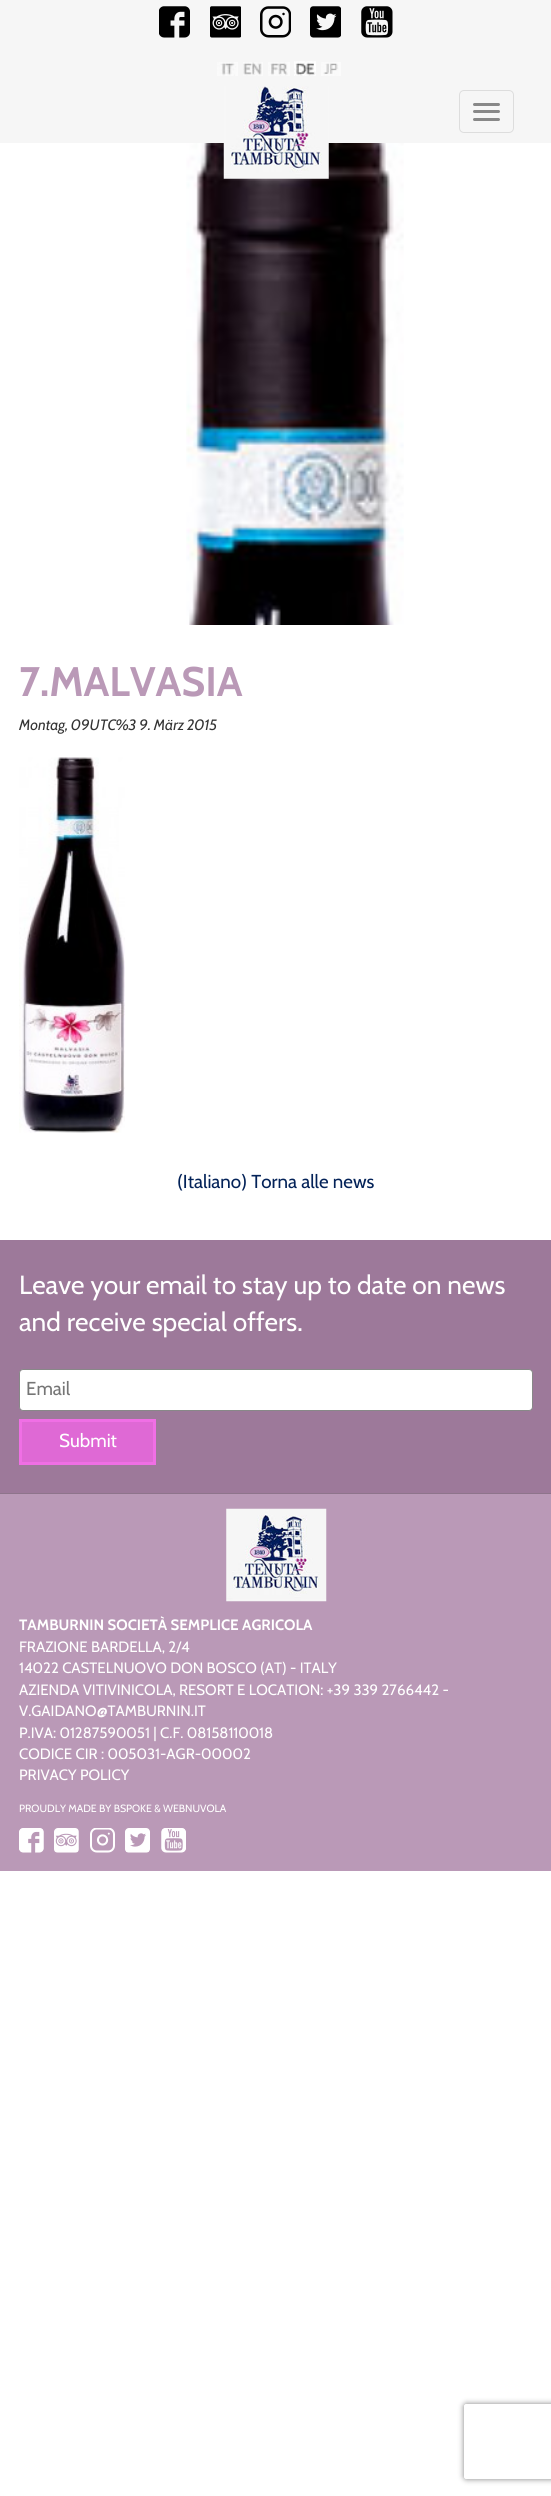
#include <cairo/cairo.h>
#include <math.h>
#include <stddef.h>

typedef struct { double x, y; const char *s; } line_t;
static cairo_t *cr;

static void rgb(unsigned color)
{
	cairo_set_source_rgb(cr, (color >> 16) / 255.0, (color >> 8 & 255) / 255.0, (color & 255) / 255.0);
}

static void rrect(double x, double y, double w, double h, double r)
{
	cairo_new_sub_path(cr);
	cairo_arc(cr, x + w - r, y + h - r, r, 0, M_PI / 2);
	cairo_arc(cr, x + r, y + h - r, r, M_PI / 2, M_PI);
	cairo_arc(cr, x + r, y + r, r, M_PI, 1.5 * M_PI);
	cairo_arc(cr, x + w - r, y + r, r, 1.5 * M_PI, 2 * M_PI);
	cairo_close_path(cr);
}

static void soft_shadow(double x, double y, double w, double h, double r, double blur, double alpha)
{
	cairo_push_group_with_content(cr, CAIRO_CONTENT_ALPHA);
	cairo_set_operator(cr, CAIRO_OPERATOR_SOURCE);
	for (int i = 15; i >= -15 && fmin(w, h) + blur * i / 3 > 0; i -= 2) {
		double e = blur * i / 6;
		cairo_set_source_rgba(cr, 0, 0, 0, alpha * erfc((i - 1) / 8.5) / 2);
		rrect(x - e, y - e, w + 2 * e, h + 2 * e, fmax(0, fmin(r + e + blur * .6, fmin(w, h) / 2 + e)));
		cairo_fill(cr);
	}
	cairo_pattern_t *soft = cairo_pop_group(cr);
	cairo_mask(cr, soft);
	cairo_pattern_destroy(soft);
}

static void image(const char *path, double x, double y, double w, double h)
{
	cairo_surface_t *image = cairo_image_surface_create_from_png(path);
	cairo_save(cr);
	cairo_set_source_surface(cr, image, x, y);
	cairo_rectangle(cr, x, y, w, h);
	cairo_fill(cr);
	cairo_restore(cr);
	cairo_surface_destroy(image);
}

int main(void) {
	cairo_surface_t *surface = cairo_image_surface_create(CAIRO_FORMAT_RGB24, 551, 2496);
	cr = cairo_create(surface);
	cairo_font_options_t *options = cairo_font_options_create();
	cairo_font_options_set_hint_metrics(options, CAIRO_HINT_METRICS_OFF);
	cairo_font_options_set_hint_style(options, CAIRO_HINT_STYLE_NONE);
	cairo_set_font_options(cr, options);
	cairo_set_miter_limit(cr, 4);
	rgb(0xffffff);
	cairo_paint(cr);
	rgb(0xf6f6f6);
	cairo_rectangle(cr, 0, 0, 551, 143);
	cairo_fill(cr);
	image("img/1.png", 159, 6, 31, 32);
	image("img/2.png", 210, 6, 31, 32);
	image("img/3.png", 260, 6, 31, 32);
	image("img/4.png", 310, 6, 31, 32);
	image("img/5.png", 361, 6, 32, 32);
	image("img/6.png", 217, 62, 21, 14);
	image("img/7.png", 243, 62, 20, 14);
	image("img/8.png", 268, 62, 22, 14);
	image("img/9.png", 294, 61, 22, 15);
	image("img/10.png", 321, 62, 20, 14);
	image("img/12.png", 186, 143, 218, 482);
	image("img/11.png", 223, 86, 106, 93);
	rrect(459.5, 90.5, 54, 42, 4.5);
	rgb(0xdddddd);
	cairo_set_line_width(cr, 1);
	cairo_stroke(cr);
	rgb(0x888888);
	rrect(473, 103, 27, 3, 1.5);
	cairo_fill(cr);
	rrect(473, 110, 27, 3, 1.5);
	cairo_fill(cr);
	rrect(473, 118, 27, 3, 1.5);
	cairo_fill(cr);
	image("img/13.png", 19, 757, 106, 376);
	rgb(0x9d799a);
	cairo_rectangle(cr, 0, 1240, 551, 253);
	cairo_fill(cr);
	rgb(0xffffff);
	rrect(19.5, 1369.5, 513, 41, 3.5);
	cairo_fill_preserve(cr);
	rgb(0x888888);
	cairo_stroke(cr);
	rgb(0xdf69d5);
	cairo_rectangle(cr, 20.5, 1420.5, 134, 43);
	cairo_fill_preserve(cr);
	rgb(0xf06fe5);
	cairo_set_line_width(cr, 3);
	cairo_stroke(cr);
	rgb(0xba99b7);
	cairo_rectangle(cr, 0, 1494, 551, 377);
	cairo_fill(cr);
	rgb(0x8e748b);
	cairo_rectangle(cr, 0, 1493, 551, 1);
	cairo_fill(cr);
	image("img/14.png", 226, 1508, 101, 94);
	image("img/15.png", 19, 1828, 25, 25);
	image("img/16.png", 54, 1828, 25, 25);
	image("img/17.png", 90, 1828, 25, 25);
	image("img/18.png", 125, 1828, 25, 25);
	image("img/19.png", 161, 1828, 25, 25);
	cairo_save(cr);
	cairo_set_fill_rule(cr, CAIRO_FILL_RULE_EVEN_ODD);
	cairo_new_path(cr);
	cairo_move_to(cr, 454, 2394);
	cairo_line_to(cr, 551, 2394);
	cairo_line_to(cr, 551, 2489);
	cairo_line_to(cr, 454, 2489);
	cairo_close_path(cr);
	cairo_move_to(cr, 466.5, 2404);
	cairo_line_to(cr, 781.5, 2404);
	cairo_curve_to(cr, 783, 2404, 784, 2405, 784, 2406.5);
	cairo_line_to(cr, 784, 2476.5);
	cairo_curve_to(cr, 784, 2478, 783, 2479, 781.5, 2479);
	cairo_line_to(cr, 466.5, 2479);
	cairo_curve_to(cr, 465, 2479, 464, 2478, 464, 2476.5);
	cairo_line_to(cr, 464, 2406.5);
	cairo_curve_to(cr, 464, 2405, 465, 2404, 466.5, 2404);
	cairo_close_path(cr);
	cairo_clip(cr);
	rgb(0x808080);
	soft_shadow(464, 2404, 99, 75, 2.5, 3, 1);
	cairo_restore(cr);
	cairo_select_font_face(cr, "Cabin", CAIRO_FONT_SLANT_NORMAL, CAIRO_FONT_WEIGHT_BOLD);
	cairo_set_font_size(cr, 41.25);
	rgb(0xba99b7);
	cairo_move_to(cr, 19, 696);
	cairo_show_text(cr, "7.MALVASIA");
	cairo_select_font_face(cr, "Cabin", CAIRO_FONT_SLANT_ITALIC, CAIRO_FONT_WEIGHT_NORMAL);
	cairo_set_font_size(cr, 15);
	rgb(0x333333);
	cairo_move_to(cr, 19, 730);
	cairo_show_text(cr, "Montag, 09UTC%3 9. März 2015");
	cairo_select_font_face(cr, "Cabin", CAIRO_FONT_SLANT_NORMAL, CAIRO_FONT_WEIGHT_NORMAL);
	cairo_set_font_size(cr, 18.75);
	rgb(0x032258);
	cairo_move_to(cr, 177, 1188);
	cairo_show_text(cr, "(Italiano) Torna alle news");
	cairo_set_font_size(cr, 26.25);
	rgb(0xffffff);
	cairo_move_to(cr, 19, 1294);
	cairo_show_text(cr, "Leave your email to stay up to date on news");
	cairo_move_to(cr, 19, 1331);
	cairo_show_text(cr, "and receive special offers.");
	cairo_set_font_size(cr, 18.75);
	rgb(0x757575);
	cairo_move_to(cr, 26, 1395);
	cairo_show_text(cr, "Email");
	rgb(0xffffff);
	cairo_move_to(cr, 59, 1447);
	cairo_show_text(cr, "Submit");
	cairo_select_font_face(cr, "Cabin", CAIRO_FONT_SLANT_NORMAL, CAIRO_FONT_WEIGHT_BOLD);
	cairo_set_font_size(cr, 15);
	cairo_move_to(cr, 19, 1630);
	cairo_show_text(cr, "TAMBURNIN SOCIETÀ SEMPLICE AGRICOLA");
	cairo_select_font_face(cr, "Cabin", CAIRO_FONT_SLANT_NORMAL, CAIRO_FONT_WEIGHT_NORMAL);
	{
		static const line_t items[] = {
			{19, 1652, "FRAZIONE BARDELLA, 2/4"},
			{19, 1673, "14022 CASTELNUOVO DON BOSCO (AT) - ITALY"},
			{19, 1695, "AZIENDA VITIVINICOLA, RESORT E LOCATION: +39 339 2766442 -"},
			{19, 1716, "V.GAIDANO@TAMBURNIN.IT"},
			{19, 1738, "P.IVA: 01287590051 | C.F. 08158110018"},
			{19, 1759, "CODICE CIR : 005031-AGR-00002"},
			{19, 1780, "PRIVACY POLICY"},
		};
		for (size_t i = 0; i < sizeof items / sizeof *items; i++) {
			cairo_move_to(cr, items[i].x, items[i].y);
			cairo_show_text(cr, items[i].s);
		}
	}
	cairo_set_font_size(cr, 10.5);
	cairo_move_to(cr, 19, 1812);
	cairo_show_text(cr, "PROUDLY MADE BY BSPOKE & WEBNUVOLA");
	cairo_surface_write_to_png(surface, "page.png");
	cairo_font_options_destroy(options);
	cairo_destroy(cr);
	cairo_surface_destroy(surface);
	return 0;
}
